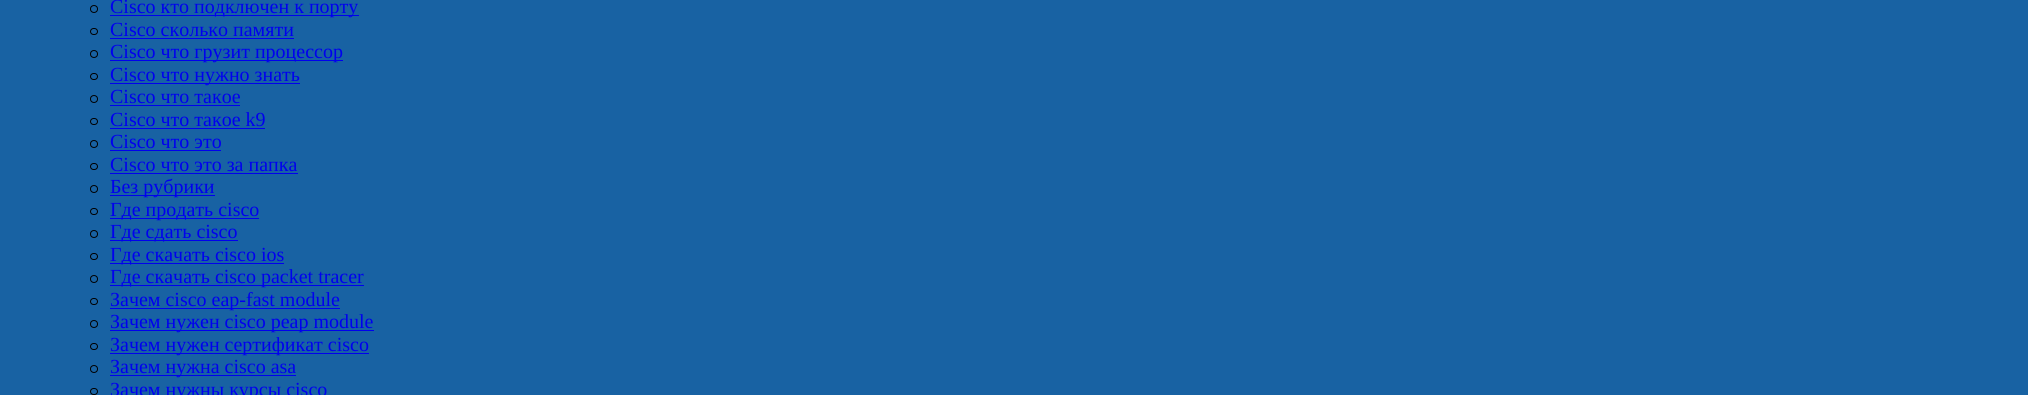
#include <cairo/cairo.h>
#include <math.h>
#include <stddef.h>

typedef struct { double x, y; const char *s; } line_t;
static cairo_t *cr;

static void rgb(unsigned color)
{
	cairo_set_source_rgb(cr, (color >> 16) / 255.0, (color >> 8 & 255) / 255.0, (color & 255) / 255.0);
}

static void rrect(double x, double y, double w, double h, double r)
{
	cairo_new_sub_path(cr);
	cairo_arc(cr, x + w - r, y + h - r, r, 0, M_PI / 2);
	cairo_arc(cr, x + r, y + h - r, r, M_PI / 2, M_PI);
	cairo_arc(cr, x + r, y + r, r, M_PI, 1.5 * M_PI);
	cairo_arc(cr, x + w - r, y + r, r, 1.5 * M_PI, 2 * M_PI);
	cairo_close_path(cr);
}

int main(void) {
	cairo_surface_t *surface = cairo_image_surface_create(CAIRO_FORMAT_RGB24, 2028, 395);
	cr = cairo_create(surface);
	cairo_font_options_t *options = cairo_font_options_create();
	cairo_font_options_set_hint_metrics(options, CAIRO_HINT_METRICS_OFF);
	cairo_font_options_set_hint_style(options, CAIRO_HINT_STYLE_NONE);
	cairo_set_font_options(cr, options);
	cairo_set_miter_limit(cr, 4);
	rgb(0x1862a3);
	cairo_paint(cr);
	cairo_arc(cr, 94, 9, 3.5, 0, 2 * M_PI);
	rgb(0x000000);
	cairo_set_line_width(cr, 1);
	cairo_stroke(cr);
	rgb(0x0000ee);
	cairo_rectangle(cr, 110, 15, 249, 1);
	cairo_fill(cr);
	rrect(90.5, 28.5, 7, 6, 3);
	rgb(0x000000);
	cairo_stroke(cr);
	rgb(0x0000ee);
	cairo_rectangle(cr, 110, 38, 184, 1);
	cairo_fill(cr);
	cairo_arc(cr, 94, 54, 3.5, 0, 2 * M_PI);
	rgb(0x000000);
	cairo_stroke(cr);
	rgb(0x0000ee);
	cairo_rectangle(cr, 110, 60, 233, 1);
	cairo_fill(cr);
	rrect(90.5, 73.5, 7, 6, 3);
	rgb(0x000000);
	cairo_stroke(cr);
	rgb(0x0000ee);
	cairo_rectangle(cr, 110, 83, 190, 1);
	cairo_fill(cr);
	cairo_arc(cr, 94, 99, 3.5, 0, 2 * M_PI);
	rgb(0x000000);
	cairo_stroke(cr);
	rgb(0x0000ee);
	cairo_rectangle(cr, 110, 105, 130, 1);
	cairo_fill(cr);
	rrect(90.5, 118.5, 7, 6, 3);
	rgb(0x000000);
	cairo_stroke(cr);
	rgb(0x0000ee);
	cairo_rectangle(cr, 110, 128, 155, 1);
	cairo_fill(cr);
	cairo_arc(cr, 94, 144, 3.5, 0, 2 * M_PI);
	rgb(0x000000);
	cairo_stroke(cr);
	rgb(0x0000ee);
	cairo_rectangle(cr, 110, 150, 111, 1);
	cairo_fill(cr);
	rrect(90.5, 163.5, 7, 6, 3);
	rgb(0x000000);
	cairo_stroke(cr);
	rgb(0x0000ee);
	cairo_rectangle(cr, 110, 173, 188, 1);
	cairo_fill(cr);
	cairo_arc(cr, 94, 189, 3.5, 0, 2 * M_PI);
	rgb(0x000000);
	cairo_stroke(cr);
	rgb(0x0000ee);
	cairo_rectangle(cr, 110, 195, 105, 1);
	cairo_fill(cr);
	rrect(90.5, 208.5, 7, 6, 3);
	rgb(0x000000);
	cairo_stroke(cr);
	rgb(0x0000ee);
	cairo_rectangle(cr, 110, 218, 149, 1);
	cairo_fill(cr);
	cairo_arc(cr, 94, 234, 3.5, 0, 2 * M_PI);
	rgb(0x000000);
	cairo_stroke(cr);
	rgb(0x0000ee);
	cairo_rectangle(cr, 110, 240, 128, 1);
	cairo_fill(cr);
	rrect(90.5, 253.5, 7, 6, 3);
	rgb(0x000000);
	cairo_stroke(cr);
	rgb(0x0000ee);
	cairo_rectangle(cr, 110, 263, 174, 1);
	cairo_fill(cr);
	cairo_arc(cr, 94, 279, 3.5, 0, 2 * M_PI);
	rgb(0x000000);
	cairo_stroke(cr);
	rgb(0x0000ee);
	cairo_rectangle(cr, 110, 285, 254, 1);
	cairo_fill(cr);
	rrect(90.5, 298.5, 7, 6, 3);
	rgb(0x000000);
	cairo_stroke(cr);
	rgb(0x0000ee);
	cairo_rectangle(cr, 110, 308, 230, 1);
	cairo_fill(cr);
	cairo_arc(cr, 94, 324, 3.5, 0, 2 * M_PI);
	rgb(0x000000);
	cairo_stroke(cr);
	rgb(0x0000ee);
	cairo_rectangle(cr, 110, 330, 264, 1);
	cairo_fill(cr);
	rrect(90.5, 343.5, 7, 6, 3);
	rgb(0x000000);
	cairo_stroke(cr);
	rgb(0x0000ee);
	cairo_rectangle(cr, 110, 353, 259, 1);
	cairo_fill(cr);
	cairo_arc(cr, 94, 369, 3.5, 0, 2 * M_PI);
	rgb(0x000000);
	cairo_stroke(cr);
	rgb(0x0000ee);
	cairo_rectangle(cr, 110, 375, 186, 1);
	cairo_fill(cr);
	rrect(90.5, 388.5, 7, 6, 3);
	rgb(0x000000);
	cairo_stroke(cr);
	cairo_select_font_face(cr, "Liberation Serif", CAIRO_FONT_SLANT_NORMAL, CAIRO_FONT_WEIGHT_NORMAL);
	cairo_set_font_size(cr, 20);
	rgb(0x0000ee);
	{
		static const line_t items[] = {
			{110, 13, "Cisco кто подключен к порту"},
			{110, 36, "Cisco сколько памяти"},
			{110, 58, "Cisco что грузит процессор"},
			{110, 81, "Cisco что нужно знать"},
			{110, 103, "Cisco что такое"},
			{110, 126, "Cisco что такое k9"},
			{110, 148, "Cisco что это"},
			{110, 171, "Cisco что это за папка"},
			{110, 193, "Без рубрики"},
			{110, 216, "Где продать cisco"},
			{110, 238, "Где сдать cisco"},
			{110, 261, "Где скачать cisco ios"},
			{110, 283, "Где скачать cisco packet tracer"},
			{110, 306, "Зачем cisco eap-fast module"},
			{110, 328, "Зачем нужен cisco peap module"},
			{110, 351, "Зачем нужен сертификат cisco"},
			{110, 373, "Зачем нужна cisco asa"},
			{110, 396, "Зачем нужны курсы cisco"},
		};
		for (size_t i = 0; i < sizeof items / sizeof *items; i++) {
			cairo_move_to(cr, items[i].x, items[i].y);
			cairo_show_text(cr, items[i].s);
		}
	}
	cairo_surface_write_to_png(surface, "page.png");
	cairo_font_options_destroy(options);
	cairo_destroy(cr);
	cairo_surface_destroy(surface);
	return 0;
}
